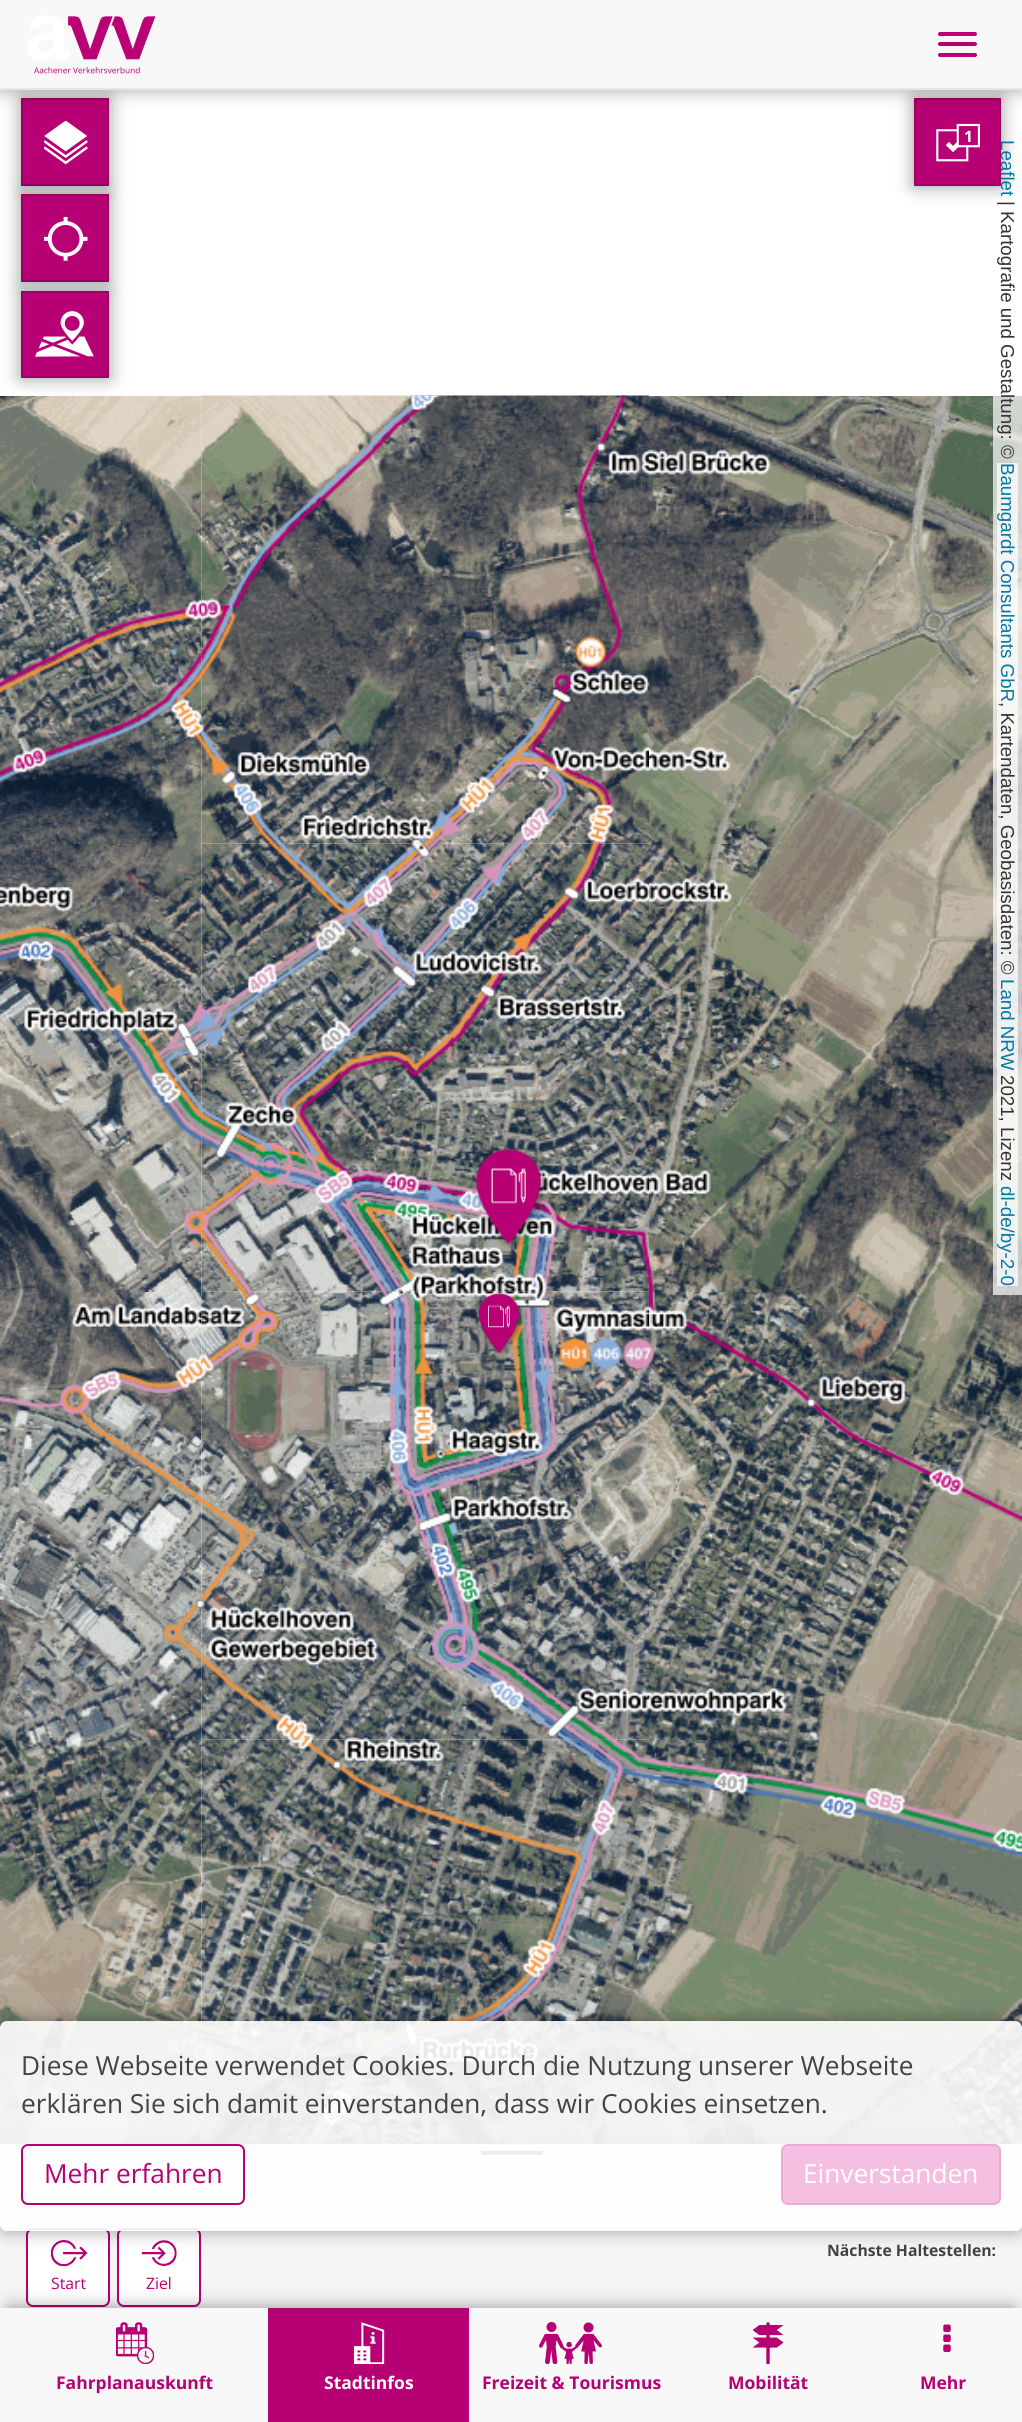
#include <cairo/cairo.h>
#include <math.h>
#include <stddef.h>

typedef struct { double x, y; const char *s; } line_t;
typedef struct { double x, y, w, h; unsigned color; } box_t;
static cairo_t *cr;

static void rgb(unsigned color)
{
	cairo_set_source_rgb(cr, (color >> 16) / 255.0, (color >> 8 & 255) / 255.0, (color & 255) / 255.0);
}

static void rrect(double x, double y, double w, double h, double r)
{
	cairo_new_sub_path(cr);
	cairo_arc(cr, x + w - r, y + h - r, r, 0, M_PI / 2);
	cairo_arc(cr, x + r, y + h - r, r, M_PI / 2, M_PI);
	cairo_arc(cr, x + r, y + r, r, M_PI, 1.5 * M_PI);
	cairo_arc(cr, x + w - r, y + r, r, 1.5 * M_PI, 2 * M_PI);
	cairo_close_path(cr);
}

static void soft_shadow(double x, double y, double w, double h, double r, double blur, double alpha)
{
	cairo_push_group_with_content(cr, CAIRO_CONTENT_ALPHA);
	cairo_set_operator(cr, CAIRO_OPERATOR_SOURCE);
	for (int i = 15; i >= -15 && fmin(w, h) + blur * i / 3 > 0; i -= 2) {
		double e = blur * i / 6;
		cairo_set_source_rgba(cr, 0, 0, 0, alpha * erfc((i - 1) / 8.5) / 2);
		rrect(x - e, y - e, w + 2 * e, h + 2 * e, fmax(0, fmin(r + e + blur * .6, fmin(w, h) / 2 + e)));
		cairo_fill(cr);
	}
	cairo_pattern_t *soft = cairo_pop_group(cr);
	cairo_mask(cr, soft);
	cairo_pattern_destroy(soft);
}

static void image(const char *path, double x, double y, double w, double h)
{
	cairo_surface_t *image = cairo_image_surface_create_from_png(path);
	cairo_save(cr);
	cairo_set_source_surface(cr, image, x, y);
	cairo_rectangle(cr, x, y, w, h);
	cairo_fill(cr);
	cairo_restore(cr);
	cairo_surface_destroy(image);
}

int main(void) {
	cairo_surface_t *surface = cairo_image_surface_create(CAIRO_FORMAT_RGB24, 1022, 2422);
	cr = cairo_create(surface);
	cairo_font_options_t *options = cairo_font_options_create();
	cairo_font_options_set_hint_metrics(options, CAIRO_HINT_METRICS_OFF);
	cairo_font_options_set_hint_style(options, CAIRO_HINT_STYLE_NONE);
	cairo_set_font_options(cr, options);
	cairo_set_miter_limit(cr, 4);
	rgb(0xffffff);
	cairo_paint(cr);
	rgb(0x000000);
	soft_shadow(21, 98, 88, 88, 0, 9, 0.4);
	rgb(0xb70073);
	cairo_rectangle(cr, 22, 99, 86, 86);
	cairo_fill_preserve(cr);
	rgb(0x9e0063);
	cairo_stroke(cr);
	image("img/2.png", 44, 121, 44, 44);
	rgb(0x000000);
	soft_shadow(21, 194, 88, 88, 0, 9, 0.4);
	rgb(0xb70073);
	cairo_rectangle(cr, 23, 196, 84, 84);
	cairo_fill(cr);
	image("img/3.png", 44, 217, 44, 44);
	cairo_rectangle(cr, 22, 195, 86, 86);
	rgb(0x9e0063);
	cairo_stroke(cr);
	image("img/6.png", 0, 396, 201, 448);
	rgb(0x000000);
	soft_shadow(21, 291, 88, 87, 0, 9, 0.4);
	rgb(0xb70073);
	cairo_rectangle(cr, 22, 292, 86, 85);
	cairo_fill_preserve(cr);
	rgb(0x9e0063);
	cairo_stroke(cr);
	image("img/4.png", 35, 311, 59, 46);
	rgb(0x000000);
	soft_shadow(914, 98, 87, 88, 0, 9, 0.4);
	rgb(0xb70073);
	cairo_rectangle(cr, 916, 100, 83, 84);
	cairo_fill(cr);
	image("img/5.png", 936, 123, 44, 39);
	image("img/10.png", 201, 843, 448, 449);
	image("img/7.png", 201, 395, 449, 449);
	image("img/8.png", 649, 396, 373, 448);
	image("img/11.png", 649, 844, 373, 448);
	image("img/14.png", 649, 1292, 373, 448);
	image("img/13.png", 201, 1291, 448, 449);
	image("img/16.png", 201, 1739, 449, 405);
	image("img/22.png", 201, 843, 449, 449);
	image("img/25.png", 201, 1291, 449, 449);
	image("img/26.png", 649, 1292, 373, 426);
	cairo_set_source_rgba(cr, 1, 1, 1, 0.7);
	cairo_rectangle(cr, 993, 396, 29, 899);
	cairo_fill(cr);
	cairo_rectangle(cr, 997, 463, 21, 239);
	cairo_fill(cr);
	cairo_rectangle(cr, 997, 702, 21, 277);
	cairo_fill(cr);
	cairo_rectangle(cr, 997, 979, 21, 91);
	cairo_fill(cr);
	cairo_rectangle(cr, 997, 1070, 21, 116);
	cairo_fill(cr);
	cairo_rectangle(cr, 997, 1186, 21, 100);
	cairo_fill(cr);
	image("img/9.png", 0, 844, 201, 448);
	image("img/12.png", 0, 1292, 201, 448);
	image("img/15.png", 0, 1740, 201, 404);
	image("img/17.png", 649, 1740, 373, 404);
	image("img/18.png", 0, 599, 201, 184);
	image("img/19.png", 201, 395, 449, 449);
	image("img/20.png", 649, 449, 122, 324);
	image("img/21.png", 0, 881, 201, 355);
	image("img/23.png", 649, 878, 83, 414);
	image("img/24.png", 0, 1303, 201, 358);
	image("img/27.png", 288, 1739, 362, 405);
	image("img/28.png", 649, 1758, 373, 100);
	image("img/29.png", 472, 1148, 77, 102);
	image("img/30.png", 477, 1292, 47, 65);
	rgb(0x000000);
	soft_shadow(9, 2144, 1004, 59, 0, 9, 0.4);
	{
		static const box_t items[] = {
			{0, 2144, 1022, 77, 0xf5f5f5},
			{481, 2151, 62, 4, 0x434343},
			{0, 2223, 1022, 85, 0xf5f5f5},
			{0, 2221, 1022, 2, 0xf2f5f6},
		};
		for (size_t i = 0; i < sizeof items / sizeof *items; i++) {
			rgb(items[i].color);
			cairo_rectangle(cr, items[i].x, items[i].y, items[i].w, items[i].h);
			cairo_fill(cr);
		}
	}
	rgb(0xffffff);
	rrect(27, 2229, 82, 77, 6);
	cairo_fill_preserve(cr);
	rgb(0xb70073);
	cairo_stroke(cr);
	image("img/31.png", 51, 2240, 37, 26);
	rgb(0xffffff);
	rrect(118, 2229, 82, 77, 6);
	cairo_fill_preserve(cr);
	rgb(0xb70073);
	cairo_stroke(cr);
	image("img/32.png", 142, 2240, 35, 26);
	cairo_save(cr);
	cairo_set_fill_rule(cr, CAIRO_FILL_RULE_EVEN_ODD);
	cairo_new_path(cr);
	cairo_move_to(cr, 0, 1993);
	cairo_line_to(cr, 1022, 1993);
	cairo_line_to(cr, 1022, 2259);
	cairo_line_to(cr, 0, 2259);
	cairo_close_path(cr);
	cairo_move_to(cr, 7, 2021);
	cairo_line_to(cr, 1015, 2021);
	cairo_curve_to(cr, 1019, 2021, 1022, 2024, 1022, 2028);
	cairo_line_to(cr, 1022, 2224);
	cairo_curve_to(cr, 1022, 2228, 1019, 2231, 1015, 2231);
	cairo_line_to(cr, 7, 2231);
	cairo_curve_to(cr, 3, 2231, 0, 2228, 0, 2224);
	cairo_line_to(cr, 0, 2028);
	cairo_curve_to(cr, 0, 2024, 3, 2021, 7, 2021);
	cairo_close_path(cr);
	cairo_clip(cr);
	rgb(0x000000);
	soft_shadow(0, 2021, 1022, 210, 7, 9, 0.36);
	cairo_restore(cr);
	cairo_set_source_rgba(cr, 1, 1, 1, 0.9);
	rrect(0, 2021, 1022, 210, 7);
	cairo_fill(cr);
	rrect(22, 2145, 222, 59, 6);
	rgb(0xb70073);
	cairo_stroke(cr);
	rgb(0xf4bfe1);
	rrect(782, 2145, 218, 59, 6);
	cairo_fill_preserve(cr);
	rgb(0xf0a9d7);
	cairo_stroke(cr);
	rgb(0x000000);
	soft_shadow(9, 2308, 1004, 97, 0, 9, 0.4);
	rgb(0xf8f8f8);
	cairo_rectangle(cr, 0, 2308, 268, 114);
	cairo_fill(cr);
	image("img/33.png", 116, 2322, 38, 42);
	rgb(0xb70073);
	cairo_rectangle(cr, 268, 2308, 201, 114);
	cairo_fill(cr);
	image("img/34.png", 354, 2322, 31, 42);
	rgb(0xf8f8f8);
	cairo_rectangle(cr, 469, 2308, 553, 114);
	cairo_fill(cr);
	image("img/35.png", 539, 2322, 63, 42);
	image("img/36.png", 753, 2322, 31, 42);
	image("img/37.png", 943, 2324, 8, 28);
	cairo_select_font_face(cr, "Liberation Sans", CAIRO_FONT_SLANT_NORMAL, CAIRO_FONT_WEIGHT_NORMAL);
	cairo_set_font_size(cr, 18.7);
	rgb(0x0078a8);
	cairo_save(cr);
	cairo_translate(cr, 1001, 140);
	cairo_rotate(cr, 90 * M_PI / 180);
	cairo_move_to(cr, 0, 0);
	cairo_show_text(cr, "Leaflet");
	cairo_restore(cr);
	cairo_rectangle(cr, 915, 99, 85, 86);
	rgb(0x9e0063);
	cairo_stroke(cr);
	rgb(0x000000);
	soft_shadow(0, 0, 1022, 89, 0, 9, 0.4);
	rgb(0xf8f8f8);
	cairo_rectangle(cr, 0, 0, 1022, 88);
	cairo_fill(cr);
	rgb(0xb70073);
	rrect(938, 53, 39, 4, 2);
	cairo_fill(cr);
	rrect(938, 42, 39, 4, 2);
	cairo_fill(cr);
	rrect(938, 32, 39, 4, 2);
	cairo_fill(cr);
	image("img/1.png", 27, 15, 129, 59);
	rgb(0xe7e7e7);
	cairo_rectangle(cr, 0, 88, 1022, 2);
	cairo_fill(cr);
	cairo_select_font_face(cr, "Open Sans", CAIRO_FONT_SLANT_NORMAL, CAIRO_FONT_WEIGHT_BOLD);
	cairo_set_font_size(cr, 15.75);
	rgb(0xffffff);
	cairo_move_to(cr, 964, 142);
	cairo_show_text(cr, "1");
	cairo_select_font_face(cr, "Liberation Sans", CAIRO_FONT_SLANT_NORMAL, CAIRO_FONT_WEIGHT_NORMAL);
	cairo_set_font_size(cr, 18.7);
	rgb(0x333333);
	cairo_save(cr);
	cairo_translate(cr, 1001, 201);
	cairo_rotate(cr, 90 * M_PI / 180);
	cairo_move_to(cr, 0, 0);
	cairo_show_text(cr, "| Kartografie und Gestaltung: ©");
	cairo_restore(cr);
	rgb(0x0078a8);
	cairo_save(cr);
	cairo_translate(cr, 1001, 463);
	cairo_rotate(cr, 90 * M_PI / 180);
	cairo_move_to(cr, 0, 0);
	cairo_show_text(cr, "Baumgardt Consultants GbR");
	cairo_restore(cr);
	rgb(0x333333);
	cairo_save(cr);
	cairo_translate(cr, 1001, 702);
	cairo_rotate(cr, 90 * M_PI / 180);
	cairo_move_to(cr, 0, 0);
	cairo_show_text(cr, ", Kartendaten, Geobasisdaten: ©");
	cairo_restore(cr);
	rgb(0x0078a8);
	cairo_save(cr);
	cairo_translate(cr, 1001, 979);
	cairo_rotate(cr, 90 * M_PI / 180);
	cairo_move_to(cr, 0, 0);
	cairo_show_text(cr, "Land NRW");
	cairo_restore(cr);
	rgb(0x333333);
	cairo_save(cr);
	cairo_translate(cr, 1001, 1075);
	cairo_rotate(cr, 90 * M_PI / 180);
	cairo_move_to(cr, 0, 0);
	cairo_show_text(cr, "2021, Lizenz");
	cairo_restore(cr);
	rgb(0x0078a8);
	cairo_save(cr);
	cairo_translate(cr, 1001, 1186);
	cairo_rotate(cr, 90 * M_PI / 180);
	cairo_move_to(cr, 0, 0);
	cairo_show_text(cr, "dl-de/by-2-0");
	cairo_restore(cr);
	cairo_select_font_face(cr, "Open Sans", CAIRO_FONT_SLANT_NORMAL, CAIRO_FONT_WEIGHT_NORMAL);
	cairo_set_font_size(cr, 26.25);
	rgb(0x434343);
	cairo_move_to(cr, 21, 2075);
	cairo_show_text(cr, "Diese Webseite verwendet Cookies. Durch die Nutzung unserer Webseite");
	cairo_move_to(cr, 21, 2113);
	cairo_show_text(cr, "erklären Sie sich damit einverstanden, dass wir Cookies einsetzen.");
	rgb(0xb70073);
	cairo_move_to(cr, 44, 2183);
	cairo_show_text(cr, "Mehr erfahren");
	rgb(0xffffff);
	cairo_move_to(cr, 803, 2183);
	cairo_show_text(cr, "Einverstanden");
	cairo_select_font_face(cr, "Open Sans", CAIRO_FONT_SLANT_NORMAL, CAIRO_FONT_WEIGHT_BOLD);
	cairo_set_font_size(cr, 15.75);
	rgb(0x434343);
	cairo_move_to(cr, 827, 2256);
	cairo_show_text(cr, "Nächste Haltestellen:");
	cairo_select_font_face(cr, "Open Sans", CAIRO_FONT_SLANT_NORMAL, CAIRO_FONT_WEIGHT_NORMAL);
	rgb(0xb70073);
	cairo_move_to(cr, 51, 2289);
	cairo_show_text(cr, "Start");
	cairo_move_to(cr, 146, 2289);
	cairo_show_text(cr, "Ziel");
	cairo_select_font_face(cr, "Open Sans", CAIRO_FONT_SLANT_NORMAL, CAIRO_FONT_WEIGHT_BOLD);
	cairo_set_font_size(cr, 17.5);
	cairo_move_to(cr, 56, 2389);
	cairo_show_text(cr, "Fahrplanauskunft");
	rgb(0xffffff);
	cairo_move_to(cr, 324, 2389);
	cairo_show_text(cr, "Stadtinfos");
	rgb(0xb70073);
	{
		static const line_t items[] = {
			{482, 2389, "Freizeit & Tourismus"},
			{728, 2389, "Mobilität"},
			{920, 2389, "Mehr"},
		};
		for (size_t i = 0; i < sizeof items / sizeof *items; i++) {
			cairo_move_to(cr, items[i].x, items[i].y);
			cairo_show_text(cr, items[i].s);
		}
	}
	cairo_surface_write_to_png(surface, "page.png");
	cairo_font_options_destroy(options);
	cairo_destroy(cr);
	cairo_surface_destroy(surface);
	return 0;
}
